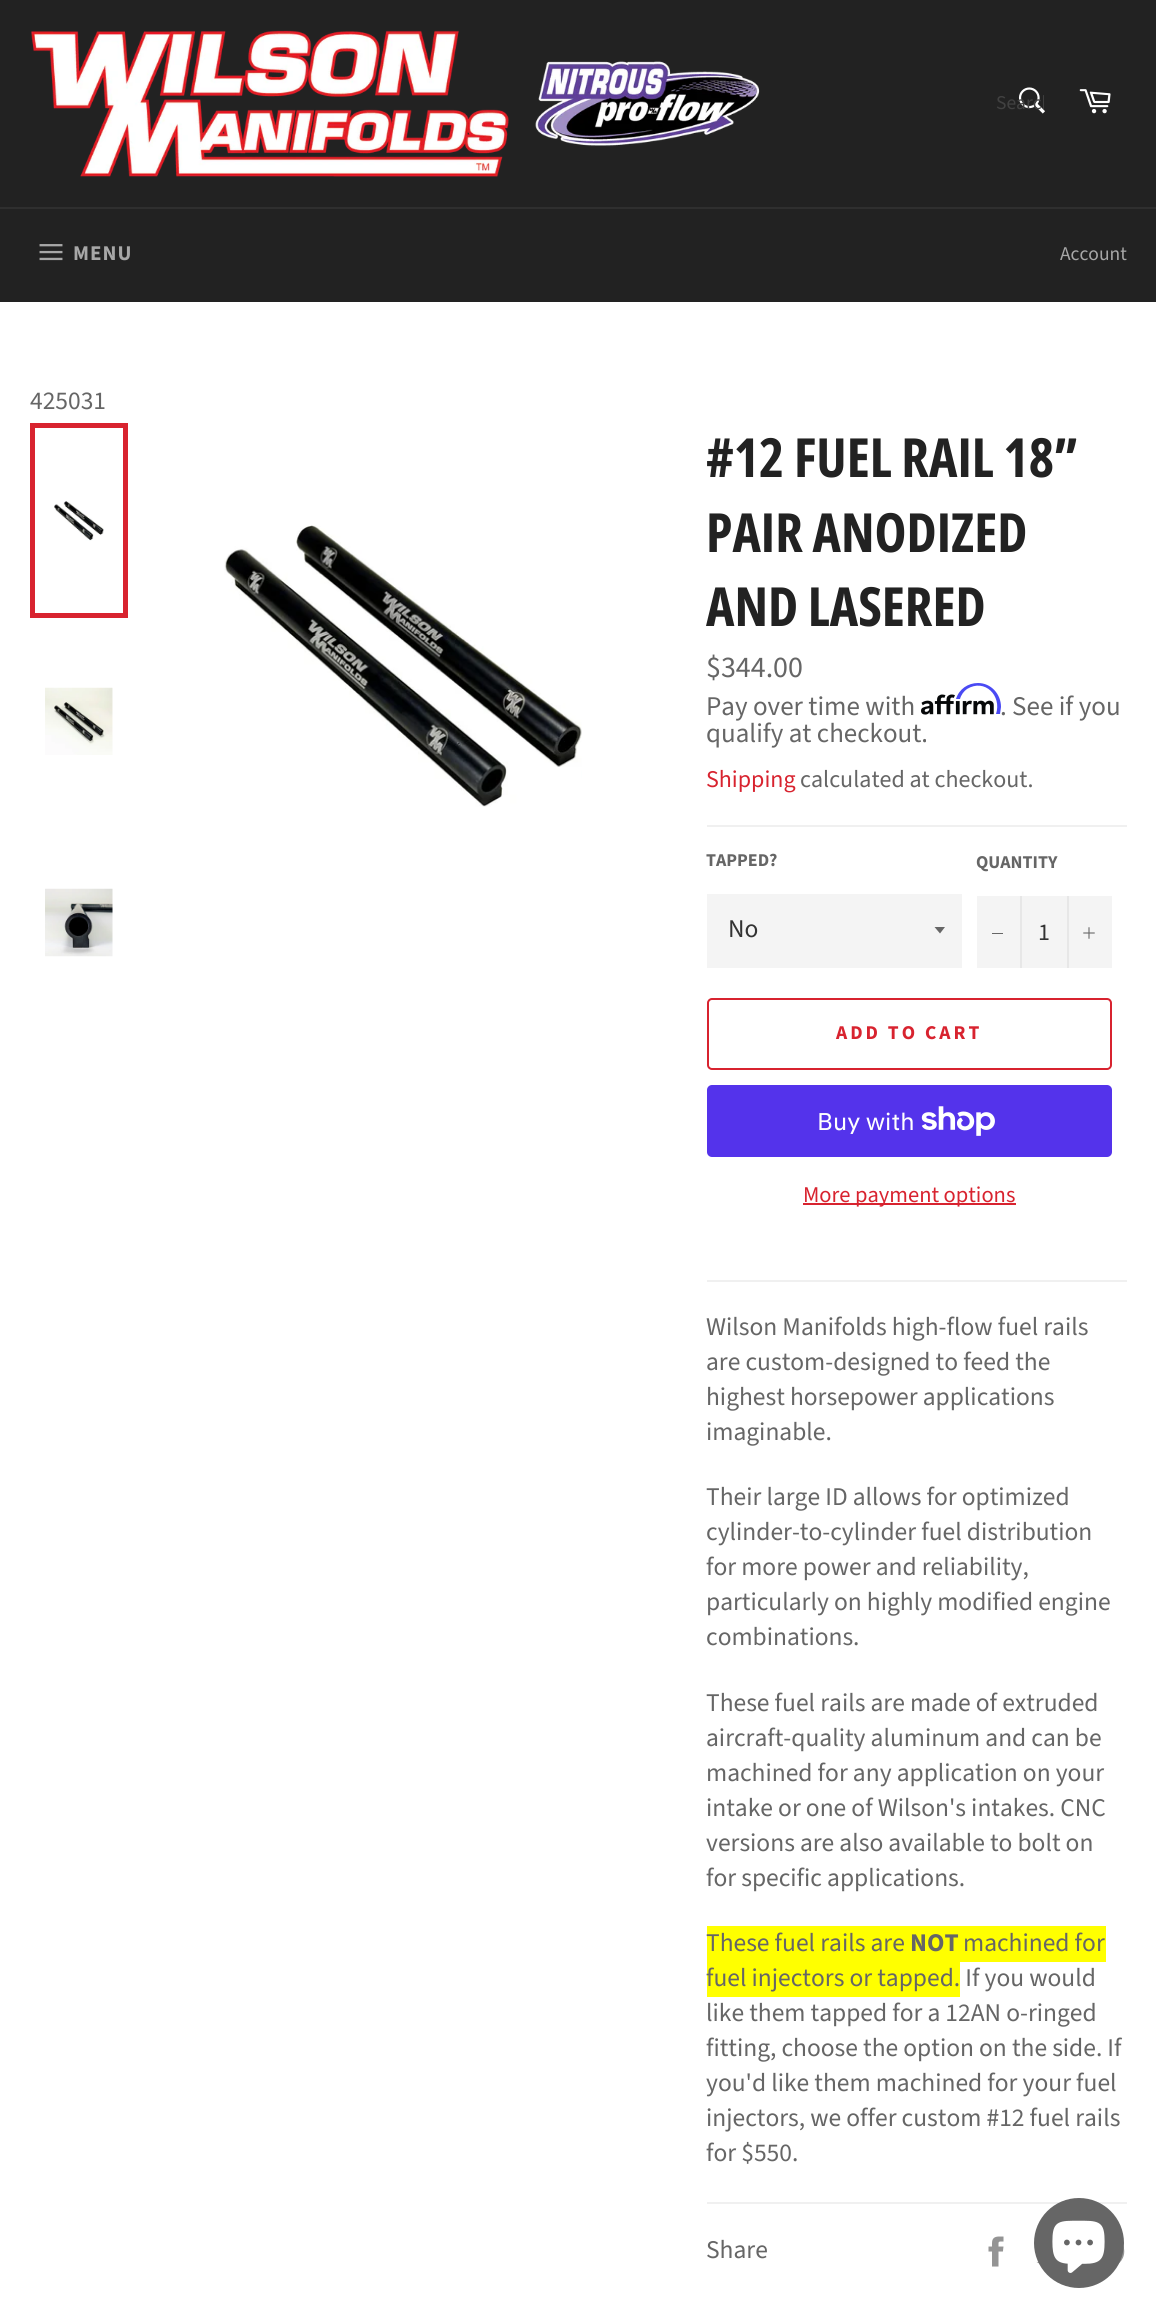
#include <cairo/cairo.h>
#include <math.h>
#include <stddef.h>

typedef struct { double x, y; const char *s; } line_t;
typedef struct { double x, y, w, h; unsigned color; } box_t;
static cairo_t *cr;

static void rgb(unsigned color)
{
	cairo_set_source_rgb(cr, (color >> 16) / 255.0, (color >> 8 & 255) / 255.0, (color & 255) / 255.0);
}

static void tracked(double x, double y, const char *s, double letter, double word)
{
	cairo_move_to(cr, x, y);
	while (*s) {
		char ch[5] = {0};
		int n = 0;
		do ch[n++] = *s++; while ((*s & 0xC0) == 0x80);
		cairo_show_text(cr, ch);
		cairo_rel_move_to(cr, letter + word * (*ch == ' '), 0);
	}
}

static void rrect(double x, double y, double w, double h, double r)
{
	cairo_new_sub_path(cr);
	cairo_arc(cr, x + w - r, y + h - r, r, 0, M_PI / 2);
	cairo_arc(cr, x + r, y + h - r, r, M_PI / 2, M_PI);
	cairo_arc(cr, x + r, y + r, r, M_PI, 1.5 * M_PI);
	cairo_arc(cr, x + w - r, y + r, r, 1.5 * M_PI, 2 * M_PI);
	cairo_close_path(cr);
}

static void image(const char *path, double x, double y, double w, double h)
{
	cairo_surface_t *image = cairo_image_surface_create_from_png(path);
	cairo_save(cr);
	cairo_set_source_surface(cr, image, x, y);
	cairo_rectangle(cr, x, y, w, h);
	cairo_fill(cr);
	cairo_restore(cr);
	cairo_surface_destroy(image);
}

int main(void) {
	cairo_surface_t *surface = cairo_image_surface_create(CAIRO_FORMAT_RGB24, 1156, 2318);
	cr = cairo_create(surface);
	cairo_font_options_t *options = cairo_font_options_create();
	cairo_font_options_set_hint_metrics(options, CAIRO_HINT_METRICS_OFF);
	cairo_font_options_set_hint_style(options, CAIRO_HINT_STYLE_NONE);
	cairo_set_font_options(cr, options);
	cairo_set_miter_limit(cr, 4);
	rgb(0x222222);
	cairo_paint(cr);
	image("img/1.png", 31, 30, 729, 147);
	image("img/2.png", 1018, 87, 27, 27);
	image("img/3.png", 1079, 89, 32, 25);
	rgb(0x2f2f2f);
	cairo_rectangle(cr, 0, 207, 1156, 2);
	cairo_fill(cr);
	image("img/4.png", 39, 244, 24, 17);
	rgb(0xffffff);
	cairo_rectangle(cr, 0, 302, 1156, 2016);
	cairo_fill(cr);
	image("img/5.png", 54, 501, 50, 40);
	cairo_rectangle(cr, 32.5, 425.5, 93, 190);
	rgb(0xd8232f);
	cairo_set_line_width(cr, 5);
	cairo_stroke(cr);
	image("img/6.png", 45, 687, 68, 68);
	image("img/7.png", 45, 888, 68, 69);
	image("img/8.png", 224, 525, 358, 282);
	image("img/9.png", 921, 694, 73, 21);
	rgb(0x4a4af4);
	cairo_new_path(cr);
	cairo_move_to(cr, 978, 683);
	cairo_curve_to(cr, 968, 683, 959, 689, 956, 699);
	cairo_line_to(cr, 960, 699);
	cairo_curve_to(cr, 961, 695, 964, 691, 967, 689);
	cairo_curve_to(cr, 985, 678, 1002, 696, 996, 714);
	cairo_line_to(cr, 1000, 714);
	cairo_line_to(cr, 1001, 707);
	cairo_curve_to(cr, 1001, 694, 991, 683, 978, 683);
	cairo_close_path(cr);
	cairo_fill(cr);
	rgb(0xf0f0f0);
	cairo_rectangle(cr, 707, 825, 420, 2);
	cairo_fill(cr);
	rgb(0xf4f4f4);
	cairo_rectangle(cr, 707, 894, 255, 74);
	cairo_fill(cr);
	rgb(0x666666);
	cairo_new_path(cr);
	cairo_move_to(cr, 934.5, 927);
	cairo_line_to(cr, 940, 933.5);
	cairo_line_to(cr, 945, 927);
	cairo_close_path(cr);
	cairo_fill(cr);
	{
		static const box_t items[] = {
			{977, 896, 135, 72, 0xf4f4f4},
			{1020, 896, 2, 72, 0xe7e7e7},
			{992, 933, 11, 1, 0x666666},
			{1067, 896, 2, 72, 0xe7e7e7},
		};
		for (size_t i = 0; i < sizeof items / sizeof *items; i++) {
			rgb(items[i].color);
			cairo_rectangle(cr, items[i].x, items[i].y, items[i].w, items[i].h);
			cairo_fill(cr);
		}
	}
	image("img/10.png", 1083, 927, 12, 12);
	rrect(708, 999, 403, 70, 4);
	rgb(0xd8232f);
	cairo_set_line_width(cr, 2);
	cairo_stroke(cr);
	rgb(0x5433eb);
	rrect(707, 1085, 405, 72, 5);
	cairo_fill(cr);
	image("img/11.png", 921, 1106, 74, 30);
	{
		static const box_t items[] = {
			{803, 1203, 213, 2, 0xd8232f},
			{707, 1280, 420, 2, 0xf0f0f0},
			{707, 1926, 252, 35, 0xffff00},
			{959, 1926, 147, 36, 0xffff00},
			{707, 1961, 253, 36, 0xffff00},
			{707, 2202, 420, 2, 0xf0f0f0},
		};
		for (size_t i = 0; i < sizeof items / sizeof *items; i++) {
			rgb(items[i].color);
			cairo_rectangle(cr, items[i].x, items[i].y, items[i].w, items[i].h);
			cairo_fill(cr);
		}
	}
	image("img/12.png", 988, 2236, 16, 31);
	image("img/13.png", 1036, 2261, 4, 3);
	image("img/14.png", 1118, 2245, 7, 19);
	rgb(0x666666);
	cairo_arc(cr, 1079, 2243, 45, 0, 2 * M_PI);
	cairo_fill(cr);
	image("img/15.png", 1052, 2220, 53, 53);
	cairo_save(cr);
	cairo_rectangle(cr, 996, 90, 48, 27);
	cairo_clip(cr);
	cairo_select_font_face(cr, "Source Sans Pro", CAIRO_FONT_SLANT_NORMAL, CAIRO_FONT_WEIGHT_NORMAL);
	cairo_set_font_size(cr, 19.5);
	rgb(0x414141);
	cairo_move_to(cr, 996, 109);
	cairo_show_text(cr, "Search");
	cairo_restore(cr);
	cairo_select_font_face(cr, "Source Sans Pro", CAIRO_FONT_SLANT_NORMAL, CAIRO_FONT_WEIGHT_BOLD);
	cairo_set_font_size(cr, 21);
	rgb(0xa7a7a7);
	tracked(73, 260, "MENU", 1, 0);
	cairo_select_font_face(cr, "Source Sans Pro", CAIRO_FONT_SLANT_NORMAL, CAIRO_FONT_WEIGHT_NORMAL);
	cairo_set_font_size(cr, 19.5);
	cairo_move_to(cr, 1060, 260);
	cairo_show_text(cr, "Account");
	cairo_set_font_size(cr, 25.5);
	rgb(0x666666);
	cairo_move_to(cr, 30, 409);
	cairo_show_text(cr, "425031");
	cairo_select_font_face(cr, "Open Sans Condensed", CAIRO_FONT_SLANT_NORMAL, CAIRO_FONT_WEIGHT_BOLD);
	cairo_set_font_size(cr, 54);
	rgb(0x222222);
	{
		static const line_t items[] = {
			{706, 477, "#12 FUEL RAIL 18”"},
			{706, 552, "PAIR ANODIZED"},
			{706, 626, "AND LASERED"},
		};
		for (size_t i = 0; i < sizeof items / sizeof *items; i++) {
			cairo_move_to(cr, items[i].x, items[i].y);
			cairo_show_text(cr, items[i].s);
		}
	}
	cairo_select_font_face(cr, "Source Sans Pro", CAIRO_FONT_SLANT_NORMAL, CAIRO_FONT_WEIGHT_NORMAL);
	cairo_set_font_size(cr, 30);
	rgb(0x666666);
	cairo_move_to(cr, 706, 677);
	cairo_show_text(cr, "$344.00");
	cairo_set_font_size(cr, 27);
	{
		static const line_t items[] = {
			{706, 715, "Pay over time with"},
			{1000, 715, ". See if you"},
			{706, 742, "qualify at checkout."},
		};
		for (size_t i = 0; i < sizeof items / sizeof *items; i++) {
			cairo_move_to(cr, items[i].x, items[i].y);
			cairo_show_text(cr, items[i].s);
		}
	}
	cairo_set_font_size(cr, 24);
	rgb(0xd8232f);
	cairo_move_to(cr, 706, 787);
	cairo_show_text(cr, "Shipping");
	rgb(0x666666);
	cairo_move_to(cr, 800, 787);
	cairo_show_text(cr, "calculated at checkout.");
	cairo_select_font_face(cr, "Source Sans Pro", CAIRO_FONT_SLANT_NORMAL, CAIRO_FONT_WEIGHT_BOLD);
	cairo_set_font_size(cr, 18);
	cairo_move_to(cr, 706, 866);
	cairo_show_text(cr, "TAPPED?");
	cairo_select_font_face(cr, "Source Sans Pro", CAIRO_FONT_SLANT_NORMAL, CAIRO_FONT_WEIGHT_NORMAL);
	cairo_set_font_size(cr, 25.5);
	rgb(0x333333);
	cairo_move_to(cr, 728, 937);
	cairo_show_text(cr, "No");
	cairo_select_font_face(cr, "Source Sans Pro", CAIRO_FONT_SLANT_NORMAL, CAIRO_FONT_WEIGHT_BOLD);
	cairo_set_font_size(cr, 18);
	rgb(0x666666);
	cairo_move_to(cr, 976, 868);
	cairo_show_text(cr, "QUANTITY");
	cairo_select_font_face(cr, "Source Sans Pro", CAIRO_FONT_SLANT_NORMAL, CAIRO_FONT_WEIGHT_NORMAL);
	cairo_set_font_size(cr, 24);
	rgb(0x333333);
	cairo_move_to(cr, 1038, 940);
	cairo_show_text(cr, "1");
	cairo_select_font_face(cr, "Source Sans Pro", CAIRO_FONT_SLANT_NORMAL, CAIRO_FONT_WEIGHT_BOLD);
	cairo_set_font_size(cr, 19.5);
	rgb(0xd8232f);
	tracked(836, 1039, "ADD TO CART", 3, 0);
	cairo_select_font_face(cr, "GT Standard", CAIRO_FONT_SLANT_NORMAL, CAIRO_FONT_WEIGHT_NORMAL);
	cairo_set_font_size(cr, 24);
	rgb(0xffffff);
	cairo_move_to(cr, 817, 1130);
	cairo_show_text(cr, "Buy with");
	cairo_select_font_face(cr, "Source Sans Pro", CAIRO_FONT_SLANT_NORMAL, CAIRO_FONT_WEIGHT_NORMAL);
	cairo_set_font_size(cr, 22.5);
	rgb(0xd8232f);
	cairo_move_to(cr, 803, 1202);
	cairo_show_text(cr, "More payment options");
	cairo_set_font_size(cr, 25.5);
	rgb(0x666666);
	{
		static const line_t items[] = {
			{706, 1335, "Wilson Manifolds high-flow fuel rails"},
			{706, 1370, "are custom-designed to feed the"},
			{706, 1405, "highest horsepower applications"},
			{706, 1440, "imaginable."},
			{706, 1505, "Their large ID allows for optimized"},
			{706, 1540, "cylinder-to-cylinder fuel distribution"},
			{706, 1575, "for more power and reliability,"},
			{706, 1610, "particularly on highly modified engine"},
			{706, 1645, "combinations."},
			{706, 1711, "These fuel rails are made of extruded"},
			{706, 1746, "aircraft-quality aluminum and can be"},
			{706, 1781, "machined for any application on your"},
			{706, 1816, "intake or one of Wilson's intakes. CNC"},
			{706, 1851, "versions are also available to bolt on"},
			{706, 1886, "for specific applications."},
			{706, 1951, "These fuel rails are"},
		};
		for (size_t i = 0; i < sizeof items / sizeof *items; i++) {
			cairo_move_to(cr, items[i].x, items[i].y);
			cairo_show_text(cr, items[i].s);
		}
	}
	cairo_select_font_face(cr, "Source Sans Pro", CAIRO_FONT_SLANT_NORMAL, CAIRO_FONT_WEIGHT_BOLD);
	cairo_move_to(cr, 910, 1951);
	cairo_show_text(cr, "NOT");
	cairo_select_font_face(cr, "Source Sans Pro", CAIRO_FONT_SLANT_NORMAL, CAIRO_FONT_WEIGHT_NORMAL);
	{
		static const line_t items[] = {
			{963, 1951, "machined for"},
			{706, 1986, "fuel injectors or tapped. If you would"},
			{706, 2021, "like them tapped for a 12AN o-ringed"},
			{706, 2056, "fitting, choose the option on the side. If"},
			{706, 2091, "you'd like them machined for your fuel"},
			{706, 2126, "injectors, we offer custom #12 fuel rails"},
			{706, 2161, "for $550."},
			{706, 2258, "Share"},
		};
		for (size_t i = 0; i < sizeof items / sizeof *items; i++) {
			cairo_move_to(cr, items[i].x, items[i].y);
			cairo_show_text(cr, items[i].s);
		}
	}
	cairo_surface_write_to_png(surface, "page.png");
	cairo_font_options_destroy(options);
	cairo_destroy(cr);
	cairo_surface_destroy(surface);
	return 0;
}
